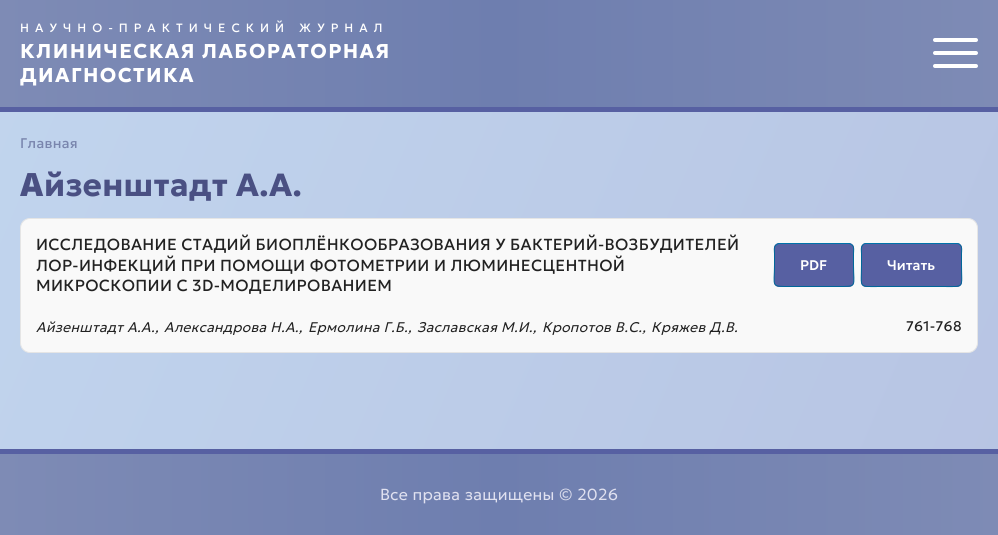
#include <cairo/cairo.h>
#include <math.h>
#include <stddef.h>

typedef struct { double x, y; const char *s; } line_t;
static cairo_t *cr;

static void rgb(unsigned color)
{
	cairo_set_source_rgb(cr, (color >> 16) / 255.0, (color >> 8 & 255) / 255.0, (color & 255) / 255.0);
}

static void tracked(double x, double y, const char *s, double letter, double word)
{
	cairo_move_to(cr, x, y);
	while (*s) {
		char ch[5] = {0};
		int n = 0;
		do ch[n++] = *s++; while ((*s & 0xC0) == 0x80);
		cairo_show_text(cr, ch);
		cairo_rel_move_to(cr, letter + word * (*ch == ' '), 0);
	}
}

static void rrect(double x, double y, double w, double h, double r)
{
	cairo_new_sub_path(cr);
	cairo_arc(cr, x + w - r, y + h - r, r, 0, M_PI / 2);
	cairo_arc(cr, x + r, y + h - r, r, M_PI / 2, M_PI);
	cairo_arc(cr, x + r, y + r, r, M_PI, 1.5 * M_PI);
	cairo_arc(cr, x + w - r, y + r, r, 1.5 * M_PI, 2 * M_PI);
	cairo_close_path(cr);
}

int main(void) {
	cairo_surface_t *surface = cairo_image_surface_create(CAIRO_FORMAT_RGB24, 998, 535);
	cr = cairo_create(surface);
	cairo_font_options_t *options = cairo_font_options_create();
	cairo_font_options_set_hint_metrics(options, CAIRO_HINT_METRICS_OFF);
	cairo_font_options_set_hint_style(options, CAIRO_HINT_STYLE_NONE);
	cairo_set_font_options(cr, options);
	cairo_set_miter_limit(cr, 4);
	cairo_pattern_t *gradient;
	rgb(0xffffff);
	cairo_paint(cr);
	gradient = cairo_pattern_create_linear(-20, 47, 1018, 488);
	cairo_pattern_add_color_stop_rgba(gradient, 0, 0.757, 0.835, 0.933, 1);
	cairo_pattern_add_color_stop_rgba(gradient, 1, 0.718, 0.769, 0.89, 1);
	cairo_set_source(cr, gradient);
	cairo_pattern_destroy(gradient);
	cairo_rectangle(cr, 0, 112, 998, 337);
	cairo_fill(cr);
	gradient = cairo_pattern_create_linear(0, 54, 998, 53);
	cairo_pattern_add_color_stop_rgba(gradient, 0, 0.494, 0.545, 0.71, 1);
	cairo_pattern_add_color_stop_rgba(gradient, 0.5, 0.431, 0.494, 0.686, 1);
	cairo_pattern_add_color_stop_rgba(gradient, 1, 0.494, 0.545, 0.71, 1);
	cairo_set_source(cr, gradient);
	cairo_pattern_destroy(gradient);
	cairo_rectangle(cr, 0, 0, 998, 107);
	cairo_fill(cr);
	rgb(0x5760a2);
	cairo_rectangle(cr, 0, 107, 998, 5);
	cairo_fill(cr);
	rgb(0xffffff);
	rrect(933, 38, 45, 4, 2);
	cairo_fill(cr);
	rrect(933, 51, 45, 4, 2);
	cairo_fill(cr);
	rrect(933, 64, 45, 4, 2);
	cairo_fill(cr);
	rgb(0xf9f9f9);
	rrect(20.5, 218.5, 957, 134, 9.5);
	cairo_fill_preserve(cr);
	rgb(0xe5e5e5);
	cairo_set_line_width(cr, 1);
	cairo_stroke(cr);
	rgb(0x5760a2);
	rrect(774, 243, 80, 44, 5);
	cairo_fill(cr);
	cairo_new_path(cr);
	cairo_move_to(cr, 776, 245);
	cairo_line_to(cr, 778.5, 243.5);
	cairo_line_to(cr, 849.5, 243.5);
	cairo_line_to(cr, 852, 245);
	rgb(0x0073aa);
	cairo_stroke(cr);
	cairo_new_path(cr);
	cairo_move_to(cr, 852, 245);
	cairo_curve_to(cr, 854.5, 247, 853.5, 251, 853.5, 253.5);
	cairo_line_to(cr, 853.5, 265);
	cairo_curve_to(cr, 853.5, 287, 858, 286.5, 837.5, 286.5);
	cairo_line_to(cr, 790.5, 286.5);
	cairo_curve_to(cr, 770, 286.5, 774.5, 287, 774.5, 265);
	cairo_line_to(cr, 774.5, 253.5);
	cairo_curve_to(cr, 774.5, 251, 773.5, 247, 776, 245);
	rgb(0x006799);
	cairo_stroke(cr);
	rgb(0x5760a2);
	rrect(861, 243, 101, 44, 5);
	cairo_fill(cr);
	cairo_new_path(cr);
	cairo_move_to(cr, 863, 245);
	cairo_curve_to(cr, 863.5, 244, 865, 243.5, 866, 243.5);
	cairo_line_to(cr, 957, 243.5);
	cairo_curve_to(cr, 958, 243.5, 959.5, 244, 960, 245);
	rgb(0x0073aa);
	cairo_stroke(cr);
	cairo_new_path(cr);
	cairo_move_to(cr, 960, 245);
	cairo_curve_to(cr, 962.5, 247, 961.5, 251, 961.5, 253.5);
	cairo_line_to(cr, 961.5, 265);
	cairo_curve_to(cr, 961.5, 289, 965.5, 286.5, 942, 286.5);
	cairo_line_to(cr, 881, 286.5);
	cairo_curve_to(cr, 857.5, 286.5, 861.5, 289, 861.5, 265);
	cairo_line_to(cr, 861.5, 253.5);
	cairo_curve_to(cr, 861.5, 251, 860.5, 247, 863, 245);
	rgb(0x006799);
	cairo_stroke(cr);
	gradient = cairo_pattern_create_linear(0, 495, 998, 494);
	cairo_pattern_add_color_stop_rgba(gradient, 0, 0.494, 0.545, 0.71, 1);
	cairo_pattern_add_color_stop_rgba(gradient, 0.5, 0.431, 0.494, 0.686, 1);
	cairo_pattern_add_color_stop_rgba(gradient, 1, 0.494, 0.545, 0.71, 1);
	cairo_set_source(cr, gradient);
	cairo_pattern_destroy(gradient);
	cairo_rectangle(cr, 0, 454, 998, 81);
	cairo_fill(cr);
	rgb(0x5760a2);
	cairo_rectangle(cr, 0, 449, 998, 5);
	cairo_fill(cr);
	cairo_select_font_face(cr, "Geologica", CAIRO_FONT_SLANT_NORMAL, CAIRO_FONT_WEIGHT_NORMAL);
	cairo_set_font_size(cr, 12);
	rgb(0xffffff);
	tracked(20, 32, "НАУЧНО-ПРАКТИЧЕСКИЙ ЖУРНАЛ", 6, 0);
	cairo_select_font_face(cr, "Geologica", CAIRO_FONT_SLANT_NORMAL, CAIRO_FONT_WEIGHT_BOLD);
	cairo_set_font_size(cr, 20);
	tracked(20, 58, "КЛИНИЧЕСКАЯ ЛАБОРАТОРНАЯ", 1.4, 0);
	tracked(20, 82, "ДИАГНОСТИКА", 1.4, 0);
	cairo_select_font_face(cr, "Geologica", CAIRO_FONT_SLANT_NORMAL, CAIRO_FONT_WEIGHT_NORMAL);
	cairo_set_font_size(cr, 14);
	rgb(0x7985ad);
	tracked(20, 148, "Главная", 0.32, 0);
	cairo_select_font_face(cr, "Noto Sans Black", CAIRO_FONT_SLANT_NORMAL, CAIRO_FONT_WEIGHT_NORMAL);
	cairo_set_font_size(cr, 32);
	rgb(0x4a5083);
	tracked(20, 196, "А", 0.32, 0);
	cairo_select_font_face(cr, "Geologica", CAIRO_FONT_SLANT_NORMAL, CAIRO_FONT_WEIGHT_BOLD);
	tracked(44, 196, "йзенштадт А.А.", 0.32, 0);
	cairo_select_font_face(cr, "Geologica", CAIRO_FONT_SLANT_NORMAL, CAIRO_FONT_WEIGHT_NORMAL);
	cairo_set_font_size(cr, 16);
	rgb(0x222222);
	{
		static const line_t items[] = {
			{36, 250, "ИССЛЕДОВАНИЕ СТАДИЙ БИОПЛЁНКООБРАЗОВАНИЯ У БАКТЕРИЙ-ВОЗБУДИТЕЛЕЙ"},
			{36, 271, "ЛОР-ИНФЕКЦИЙ ПРИ ПОМОЩИ ФОТОМЕТРИИ И ЛЮМИНЕСЦЕНТНОЙ"},
			{36, 291, "МИКРОСКОПИИ С 3D-МОДЕЛИРОВАНИЕМ"},
		};
		for (size_t i = 0; i < sizeof items / sizeof *items; i++) {
			tracked(items[i].x, items[i].y, items[i].s, 0.32, 0);
		}
	}
	cairo_select_font_face(cr, "Geologica Medium", CAIRO_FONT_SLANT_NORMAL, CAIRO_FONT_WEIGHT_NORMAL);
	cairo_set_font_size(cr, 14);
	rgb(0xffffff);
	cairo_move_to(cr, 800, 270);
	cairo_show_text(cr, "PDF");
	cairo_move_to(cr, 887, 270);
	cairo_show_text(cr, "Читать");
	cairo_select_font_face(cr, "Geologica Light", CAIRO_FONT_SLANT_ITALIC, CAIRO_FONT_WEIGHT_NORMAL);
	rgb(0x222222);
	{
		static const line_t items[] = {
			{36, 332, "Айзенштадт А.А.,"},
			{164, 332, "Александрова Н.А.,"},
			{308, 332, "Ермолина Г.Б.,"},
			{417, 332, "Заславская М.И.,"},
			{542, 332, "Кропотов В.С.,"},
			{651, 332, "Кряжев Д.В."},
		};
		for (size_t i = 0; i < sizeof items / sizeof *items; i++) {
			tracked(items[i].x, items[i].y, items[i].s, 0.32, 0);
		}
	}
	cairo_select_font_face(cr, "Geologica", CAIRO_FONT_SLANT_NORMAL, CAIRO_FONT_WEIGHT_NORMAL);
	tracked(906, 331, "761-768", 0.32, 0);
	cairo_select_font_face(cr, "Geologica Light", CAIRO_FONT_SLANT_NORMAL, CAIRO_FONT_WEIGHT_NORMAL);
	cairo_set_font_size(cr, 16);
	rgb(0xe0e1f0);
	tracked(380, 500, "Все права защищены © 2026", 0.32, 0);
	cairo_surface_write_to_png(surface, "page.png");
	cairo_font_options_destroy(options);
	cairo_destroy(cr);
	cairo_surface_destroy(surface);
	return 0;
}
